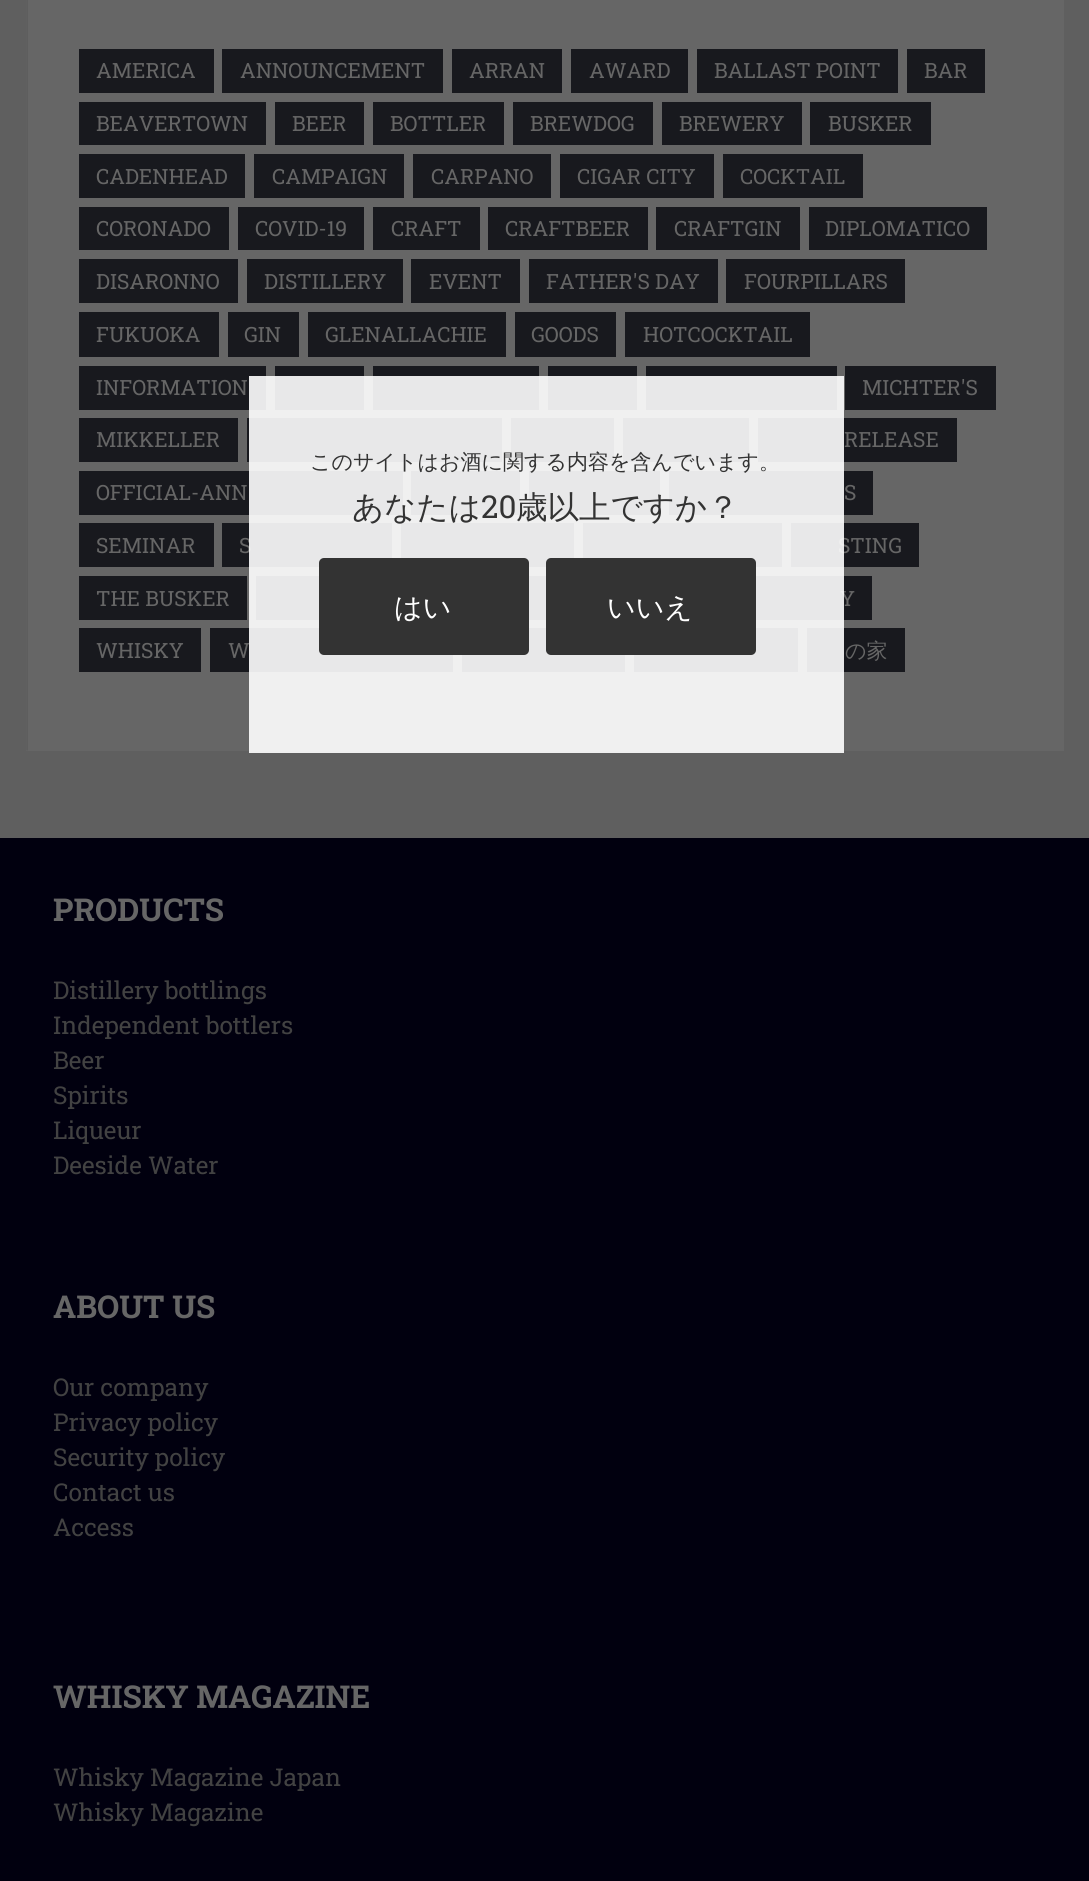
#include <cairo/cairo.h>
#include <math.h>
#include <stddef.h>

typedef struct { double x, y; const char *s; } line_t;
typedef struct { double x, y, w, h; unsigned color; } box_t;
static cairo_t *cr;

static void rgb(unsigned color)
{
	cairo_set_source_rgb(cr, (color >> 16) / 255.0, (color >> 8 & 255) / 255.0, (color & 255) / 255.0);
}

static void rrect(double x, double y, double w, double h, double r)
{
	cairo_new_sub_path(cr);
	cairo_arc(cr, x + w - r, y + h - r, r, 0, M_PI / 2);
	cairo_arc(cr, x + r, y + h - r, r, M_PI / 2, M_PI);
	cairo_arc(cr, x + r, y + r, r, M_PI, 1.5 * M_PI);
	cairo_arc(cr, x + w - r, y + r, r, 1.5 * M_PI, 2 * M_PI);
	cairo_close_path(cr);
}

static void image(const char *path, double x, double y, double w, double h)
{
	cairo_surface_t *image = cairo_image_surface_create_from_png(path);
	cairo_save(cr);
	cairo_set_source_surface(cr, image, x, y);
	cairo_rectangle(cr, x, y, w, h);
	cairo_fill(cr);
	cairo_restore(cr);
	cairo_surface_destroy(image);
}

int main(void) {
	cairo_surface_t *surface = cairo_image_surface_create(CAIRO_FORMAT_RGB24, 1089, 1881);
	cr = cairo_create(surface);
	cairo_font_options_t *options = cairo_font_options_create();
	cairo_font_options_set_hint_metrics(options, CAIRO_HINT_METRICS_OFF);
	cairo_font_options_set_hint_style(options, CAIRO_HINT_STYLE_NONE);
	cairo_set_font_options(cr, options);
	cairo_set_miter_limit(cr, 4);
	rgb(0x5f5f5f);
	cairo_paint(cr);
	rgb(0x666666);
	cairo_rectangle(cr, 26, 0, 1038, 751);
	cairo_fill(cr);
	image("img/1.png", 26, 0, 2, 751);
	{
		static const box_t items[] = {
			{79, 49, 135, 44, 0x18191e},
			{222, 49, 221, 44, 0x18191e},
			{452, 49, 110, 44, 0x18191e},
			{571, 49, 117, 44, 0x18191e},
			{697, 49, 201, 44, 0x18191e},
			{907, 49, 78, 44, 0x18191e},
			{79, 102, 187, 43, 0x18191e},
			{275, 102, 89, 43, 0x18191e},
			{373, 102, 131, 43, 0x18191e},
			{513, 102, 140, 43, 0x18191e},
			{662, 102, 140, 43, 0x18191e},
			{810, 102, 121, 43, 0x18191e},
			{79, 154, 166, 44, 0x18191e},
			{254, 154, 150, 44, 0x18191e},
			{413, 154, 138, 44, 0x18191e},
			{560, 154, 154, 44, 0x18191e},
			{723, 154, 140, 44, 0x18191e},
			{79, 207, 150, 43, 0x18191e},
			{238, 207, 126, 43, 0x18191e},
			{373, 207, 107, 43, 0x18191e},
			{488, 207, 160, 43, 0x18191e},
			{656, 207, 144, 43, 0x18191e},
			{809, 207, 178, 43, 0x18191e},
			{79, 259, 159, 44, 0x18191e},
			{247, 259, 156, 44, 0x18191e},
			{411, 259, 109, 44, 0x18191e},
			{529, 259, 189, 44, 0x18191e},
			{726, 259, 179, 44, 0x18191e},
			{79, 312, 140, 45, 0x18191e},
			{228, 312, 71, 45, 0x18191e},
			{308, 312, 198, 45, 0x18191e},
			{515, 312, 101, 45, 0x18191e},
			{625, 312, 185, 45, 0x18191e},
			{79, 366, 187, 44, 0x18191e},
			{275, 366, 89, 44, 0x18191e},
			{373, 366, 166, 44, 0x18191e},
			{548, 366, 89, 44, 0x18191e},
			{646, 366, 191, 44, 0x18191e},
			{845, 366, 151, 44, 0x18191e},
			{79, 418, 159, 44, 0x18191e},
			{247, 418, 255, 44, 0x18191e},
			{511, 418, 103, 44, 0x18191e},
			{623, 418, 126, 44, 0x18191e},
			{758, 418, 199, 44, 0x18191e},
			{79, 471, 324, 44, 0x18191e},
			{411, 471, 109, 44, 0x18191e},
			{529, 471, 131, 44, 0x18191e},
			{669, 471, 204, 44, 0x18191e},
			{79, 523, 135, 44, 0x18191e},
			{222, 523, 170, 44, 0x18191e},
			{401, 523, 173, 44, 0x18191e},
			{583, 523, 199, 44, 0x18191e},
			{791, 523, 128, 44, 0x18191e},
			{79, 576, 168, 44, 0x18191e},
			{256, 576, 63, 44, 0x18191e},
			{529, 576, 17, 44, 0x18191e},
			{756, 576, 116, 44, 0x18191e},
			{79, 628, 122, 44, 0x18191e},
			{210, 628, 243, 44, 0x18191e},
			{462, 628, 163, 44, 0x18191e},
			{634, 628, 164, 44, 0x18191e},
			{807, 628, 98, 44, 0x18191e},
			{0, 838, 1089, 1043, 0x01000f},
		};
		for (size_t i = 0; i < sizeof items / sizeof *items; i++) {
			rgb(items[i].color);
			cairo_rectangle(cr, items[i].x, items[i].y, items[i].w, items[i].h);
			cairo_fill(cr);
		}
	}
	cairo_select_font_face(cr, "Roboto Slab", CAIRO_FONT_SLANT_NORMAL, CAIRO_FONT_WEIGHT_NORMAL);
	cairo_set_font_size(cr, 21);
	rgb(0x666666);
	{
		static const line_t items[] = {
			{96, 78, "AMERICA"},
			{240, 78, "ANNOUNCEMENT"},
			{469, 78, "ARRAN"},
			{589, 78, "AWARD"},
			{714, 78, "BALLAST POINT"},
			{924, 78, "BAR"},
			{96, 131, "BEAVERTOWN"},
			{292, 131, "BEER"},
			{390, 131, "BOTTLER"},
			{530, 131, "BREWDOG"},
			{679, 131, "BREWERY"},
			{828, 131, "BUSKER"},
			{96, 184, "CADENHEAD"},
			{272, 184, "CAMPAIGN"},
			{431, 184, "CARPANO"},
			{577, 184, "CIGAR CITY"},
			{740, 184, "COCKTAIL"},
			{96, 236, "CORONADO"},
			{255, 236, "COVID-19"},
			{391, 236, "CRAFT"},
			{505, 236, "CRAFTBEER"},
			{674, 236, "CRAFTGIN"},
			{825, 236, "DIPLOMATICO"},
			{96, 289, "DISARONNO"},
			{264, 289, "DISTILLERY"},
			{429, 289, "EVENT"},
			{546, 289, "FATHER'S DAY"},
			{744, 289, "FOURPILLARS"},
			{96, 342, "FUKUOKA"},
			{244, 342, "GIN"},
			{325, 342, "GLENALLACHIE"},
			{531, 342, "GOODS"},
			{643, 342, "HOTCOCKTAIL"},
			{96, 395, "INFORMATION"},
			{862, 395, "MICHTER'S"},
			{96, 447, "MIKKELLER"},
			{844, 447, "RELEASE"},
			{96, 500, "OFFICIAL-ANN"},
			{844, 500, "S"},
			{96, 553, "SEMINAR"},
			{239, 553, "S"},
			{838, 553, "STING"},
			{96, 606, "THE BUSKER"},
			{840, 606, "Y"},
			{96, 658, "WHISKY"},
			{228, 658, "W"},
		};
		for (size_t i = 0; i < sizeof items / sizeof *items; i++) {
			cairo_move_to(cr, items[i].x, items[i].y);
			cairo_show_text(cr, items[i].s);
		}
	}
	cairo_select_font_face(cr, "WenQuanYi Zen Hei Medium", CAIRO_FONT_SLANT_NORMAL, CAIRO_FONT_WEIGHT_NORMAL);
	cairo_move_to(cr, 845, 658);
	cairo_show_text(cr, "の家");
	cairo_select_font_face(cr, "Roboto Slab", CAIRO_FONT_SLANT_NORMAL, CAIRO_FONT_WEIGHT_BOLD);
	cairo_set_font_size(cr, 31.5);
	cairo_move_to(cr, 53, 921);
	cairo_show_text(cr, "PRODUCTS");
	cairo_select_font_face(cr, "Roboto Slab", CAIRO_FONT_SLANT_NORMAL, CAIRO_FONT_WEIGHT_NORMAL);
	cairo_set_font_size(cr, 24.5);
	rgb(0x424242);
	{
		static const line_t items[] = {
			{53, 999, "Distillery bottlings"},
			{53, 1034, "Independent bottlers"},
			{53, 1069, "Beer"},
			{53, 1104, "Spirits"},
			{53, 1139, "Liqueur"},
			{53, 1174, "Deeside Water"},
		};
		for (size_t i = 0; i < sizeof items / sizeof *items; i++) {
			cairo_move_to(cr, items[i].x, items[i].y);
			cairo_show_text(cr, items[i].s);
		}
	}
	cairo_select_font_face(cr, "Roboto Slab", CAIRO_FONT_SLANT_NORMAL, CAIRO_FONT_WEIGHT_BOLD);
	cairo_set_font_size(cr, 31.5);
	rgb(0x666666);
	cairo_move_to(cr, 53, 1318);
	cairo_show_text(cr, "ABOUT US");
	cairo_select_font_face(cr, "Roboto Slab", CAIRO_FONT_SLANT_NORMAL, CAIRO_FONT_WEIGHT_NORMAL);
	cairo_set_font_size(cr, 24.5);
	rgb(0x424242);
	{
		static const line_t items[] = {
			{53, 1396, "Our company"},
			{53, 1431, "Privacy policy"},
			{53, 1466, "Security policy"},
			{53, 1501, "Contact us"},
			{53, 1536, "Access"},
		};
		for (size_t i = 0; i < sizeof items / sizeof *items; i++) {
			cairo_move_to(cr, items[i].x, items[i].y);
			cairo_show_text(cr, items[i].s);
		}
	}
	cairo_select_font_face(cr, "Roboto Slab", CAIRO_FONT_SLANT_NORMAL, CAIRO_FONT_WEIGHT_BOLD);
	cairo_set_font_size(cr, 31.5);
	rgb(0x666666);
	cairo_move_to(cr, 53, 1708);
	cairo_show_text(cr, "WHISKY MAGAZINE");
	cairo_select_font_face(cr, "Roboto Slab", CAIRO_FONT_SLANT_NORMAL, CAIRO_FONT_WEIGHT_NORMAL);
	cairo_set_font_size(cr, 24.5);
	rgb(0x424242);
	cairo_move_to(cr, 53, 1786);
	cairo_show_text(cr, "Whisky Magazine Japan");
	cairo_move_to(cr, 53, 1821);
	cairo_show_text(cr, "Whisky Magazine");
	cairo_set_source_rgba(cr, 1, 1, 1, 0.9);
	cairo_rectangle(cr, 249, 376, 595, 377);
	cairo_fill(cr);
	cairo_select_font_face(cr, "WenQuanYi Zen Hei Medium", CAIRO_FONT_SLANT_NORMAL, CAIRO_FONT_WEIGHT_NORMAL);
	cairo_set_font_size(cr, 21);
	rgb(0x333333);
	cairo_move_to(cr, 310, 469);
	cairo_show_text(cr, "このサイトはお酒に関する内容を含んでいます。");
	cairo_set_font_size(cr, 31.5);
	cairo_move_to(cr, 352, 518);
	cairo_show_text(cr, "あなたは");
	cairo_select_font_face(cr, "Roboto Slab", CAIRO_FONT_SLANT_NORMAL, CAIRO_FONT_WEIGHT_NORMAL);
	cairo_move_to(cr, 481, 518);
	cairo_show_text(cr, "20");
	cairo_select_font_face(cr, "WenQuanYi Zen Hei Medium", CAIRO_FONT_SLANT_NORMAL, CAIRO_FONT_WEIGHT_NORMAL);
	cairo_move_to(cr, 516, 518);
	cairo_show_text(cr, "歳以上ですか？");
	rrect(319, 558, 210, 97, 5);
	cairo_fill(cr);
	cairo_set_font_size(cr, 28);
	rgb(0xffffff);
	cairo_move_to(cr, 394, 617);
	cairo_show_text(cr, "はい");
	rgb(0x333333);
	rrect(546, 558, 210, 97, 5);
	cairo_fill(cr);
	rgb(0xffffff);
	cairo_move_to(cr, 607, 617);
	cairo_show_text(cr, "いいえ");
	cairo_surface_write_to_png(surface, "page.png");
	cairo_font_options_destroy(options);
	cairo_destroy(cr);
	cairo_surface_destroy(surface);
	return 0;
}
